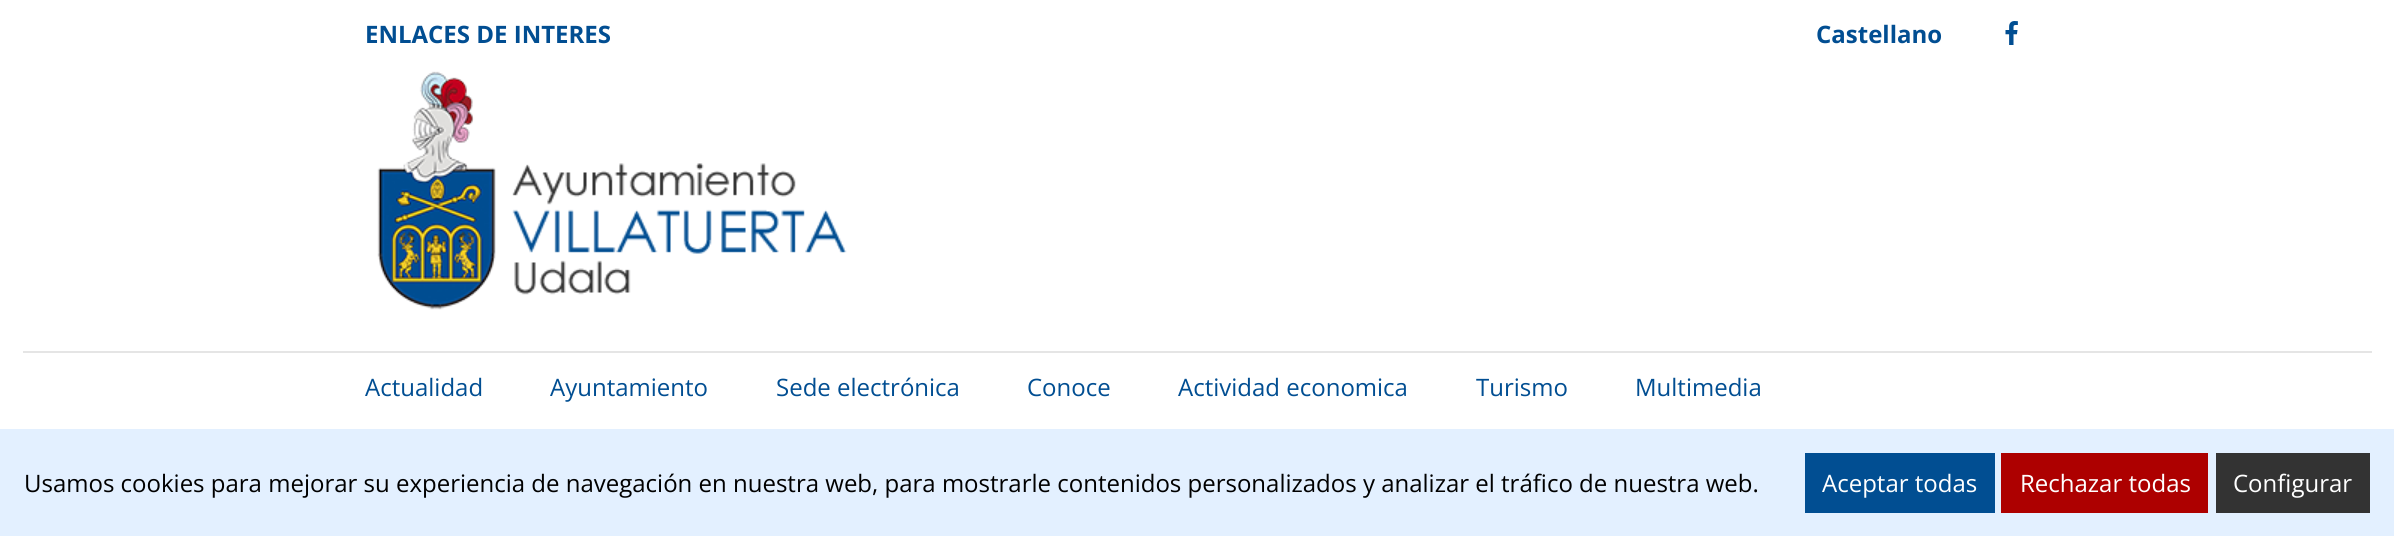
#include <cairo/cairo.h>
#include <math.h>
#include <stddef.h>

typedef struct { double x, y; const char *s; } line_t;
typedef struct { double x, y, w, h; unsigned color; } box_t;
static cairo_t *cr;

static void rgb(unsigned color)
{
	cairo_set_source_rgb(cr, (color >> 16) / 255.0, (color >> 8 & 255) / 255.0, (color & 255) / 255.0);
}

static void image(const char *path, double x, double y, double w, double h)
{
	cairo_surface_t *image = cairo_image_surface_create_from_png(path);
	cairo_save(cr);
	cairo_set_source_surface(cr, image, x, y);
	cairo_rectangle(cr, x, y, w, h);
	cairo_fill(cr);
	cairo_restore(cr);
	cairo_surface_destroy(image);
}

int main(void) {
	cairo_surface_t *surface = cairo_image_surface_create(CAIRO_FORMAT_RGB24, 2394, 536);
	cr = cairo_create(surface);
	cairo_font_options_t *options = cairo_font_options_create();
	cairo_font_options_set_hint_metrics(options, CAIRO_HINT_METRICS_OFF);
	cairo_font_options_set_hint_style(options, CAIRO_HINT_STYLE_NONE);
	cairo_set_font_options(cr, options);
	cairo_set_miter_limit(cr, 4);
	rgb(0xffffff);
	cairo_paint(cr);
	image("img/1.png", 2005, 21, 13, 24);
	image("img/2.png", 377, 71, 470, 239);
	{
		static const box_t items[] = {
			{23, 351, 2349, 2, 0xe5e5e5},
			{0, 429, 2394, 107, 0xe3f0ff},
			{1805, 453, 190, 60, 0x014e92},
			{2001, 453, 207, 60, 0xad0000},
			{2216, 453, 154, 60, 0x333333},
		};
		for (size_t i = 0; i < sizeof items / sizeof *items; i++) {
			rgb(items[i].color);
			cairo_rectangle(cr, items[i].x, items[i].y, items[i].w, items[i].h);
			cairo_fill(cr);
		}
	}
	cairo_select_font_face(cr, "Open Sans", CAIRO_FONT_SLANT_NORMAL, CAIRO_FONT_WEIGHT_BOLD);
	cairo_set_font_size(cr, 24);
	rgb(0x014e92);
	cairo_move_to(cr, 365, 43);
	cairo_show_text(cr, "ENLACES DE INTERES");
	cairo_move_to(cr, 1816, 43);
	cairo_show_text(cr, "Castellano");
	cairo_select_font_face(cr, "Open Sans", CAIRO_FONT_SLANT_NORMAL, CAIRO_FONT_WEIGHT_NORMAL);
	{
		static const line_t items[] = {
			{365, 396, "Actualidad"},
			{550, 396, "Ayuntamiento"},
			{776, 396, "Sede electrónica"},
			{1027, 396, "Conoce"},
			{1178, 396, "Actividad economica"},
			{1476, 396, "Turismo"},
			{1635, 396, "Multimedia"},
		};
		for (size_t i = 0; i < sizeof items / sizeof *items; i++) {
			cairo_move_to(cr, items[i].x, items[i].y);
			cairo_show_text(cr, items[i].s);
		}
	}
	rgb(0x000000);
	cairo_move_to(cr, 24, 492);
	cairo_show_text(cr, "Usamos cookies para mejorar su experiencia de navegación en nuestra web, para mostrarle contenidos personalizados y analizar el tráfico de nuestra web.");
	rgb(0xffffff);
	{
		static const line_t items[] = {
			{1822, 492, "Aceptar todas"},
			{2020, 492, "Rechazar todas"},
			{2233, 492, "Configurar"},
		};
		for (size_t i = 0; i < sizeof items / sizeof *items; i++) {
			cairo_move_to(cr, items[i].x, items[i].y);
			cairo_show_text(cr, items[i].s);
		}
	}
	cairo_surface_write_to_png(surface, "page.png");
	cairo_font_options_destroy(options);
	cairo_destroy(cr);
	cairo_surface_destroy(surface);
	return 0;
}
